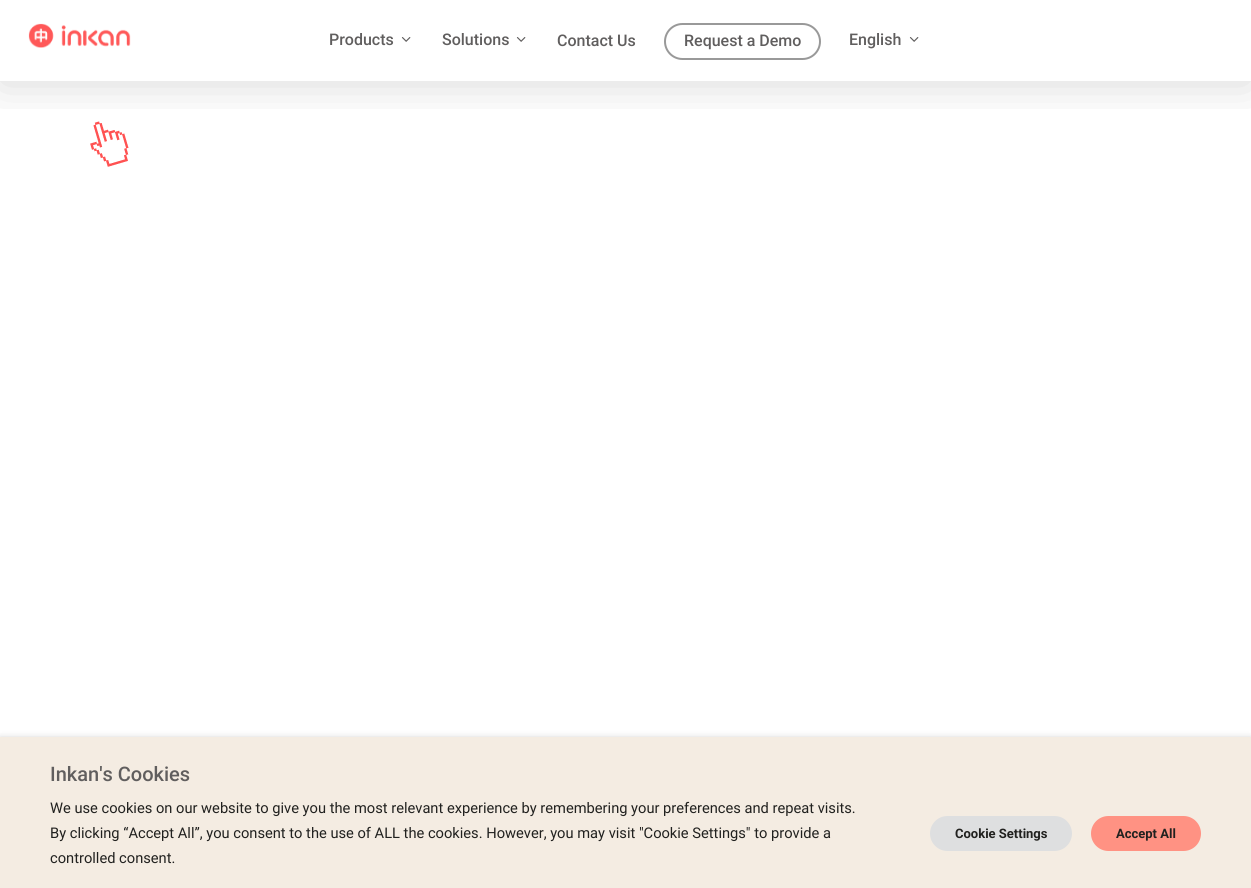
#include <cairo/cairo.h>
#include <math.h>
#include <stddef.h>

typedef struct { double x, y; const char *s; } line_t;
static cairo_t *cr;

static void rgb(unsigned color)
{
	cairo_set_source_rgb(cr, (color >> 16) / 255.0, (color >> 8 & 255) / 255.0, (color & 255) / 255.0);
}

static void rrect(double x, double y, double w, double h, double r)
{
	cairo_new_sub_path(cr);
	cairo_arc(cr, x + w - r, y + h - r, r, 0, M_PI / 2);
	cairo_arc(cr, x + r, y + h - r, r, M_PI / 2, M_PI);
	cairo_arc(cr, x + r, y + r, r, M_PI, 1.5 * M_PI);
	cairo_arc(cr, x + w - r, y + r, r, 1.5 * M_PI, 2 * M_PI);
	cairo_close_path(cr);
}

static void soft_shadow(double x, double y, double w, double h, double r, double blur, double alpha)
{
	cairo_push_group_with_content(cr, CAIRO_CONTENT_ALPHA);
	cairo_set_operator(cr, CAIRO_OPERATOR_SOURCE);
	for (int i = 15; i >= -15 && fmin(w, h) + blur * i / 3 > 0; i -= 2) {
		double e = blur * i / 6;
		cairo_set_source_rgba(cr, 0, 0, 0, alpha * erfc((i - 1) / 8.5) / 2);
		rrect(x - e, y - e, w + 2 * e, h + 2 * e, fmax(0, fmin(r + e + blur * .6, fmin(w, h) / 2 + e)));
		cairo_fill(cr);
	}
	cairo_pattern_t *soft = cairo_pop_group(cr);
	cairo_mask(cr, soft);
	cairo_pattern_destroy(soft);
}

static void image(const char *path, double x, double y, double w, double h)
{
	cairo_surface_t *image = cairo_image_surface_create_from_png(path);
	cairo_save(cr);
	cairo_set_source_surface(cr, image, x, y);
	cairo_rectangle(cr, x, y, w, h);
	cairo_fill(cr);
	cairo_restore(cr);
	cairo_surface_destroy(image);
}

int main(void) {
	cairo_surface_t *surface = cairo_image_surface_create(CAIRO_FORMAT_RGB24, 1251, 888);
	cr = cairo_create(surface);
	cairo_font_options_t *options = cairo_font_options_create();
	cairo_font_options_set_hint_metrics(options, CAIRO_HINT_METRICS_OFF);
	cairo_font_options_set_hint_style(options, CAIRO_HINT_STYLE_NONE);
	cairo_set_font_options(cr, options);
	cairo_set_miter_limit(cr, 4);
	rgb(0xffffff);
	cairo_paint(cr);
	image("img/3.png", 90, 121, 39, 46);
	cairo_save(cr);
	cairo_rectangle(cr, 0, 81, 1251, 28);
	cairo_clip(cr);
	rgb(0x000000);
	soft_shadow(0, 3, 1251, 81, 0, 22.5, 0.15);
	cairo_restore(cr);
	image("img/1.png", 28, 23, 103, 25);
	image("img/2.png", 401, 37, 10, 5);
	image("img/2.png", 516, 37, 10, 5);
	rrect(665, 24, 155, 35, 17.5);
	rgb(0x999999);
	cairo_stroke(cr);
	image("img/2.png", 909, 37, 10, 5);
	rgb(0x000000);
	soft_shadow(0, 742, 1251, 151, 0, 5, 0.5);
	rgb(0xf4ece2);
	cairo_rectangle(cr, 0, 737, 1251, 151);
	cairo_fill(cr);
	rgb(0xdedfe0);
	rrect(930, 816, 142, 35, 17.5);
	cairo_fill(cr);
	rgb(0xff9283);
	rrect(1091, 816, 110, 35, 17.5);
	cairo_fill(cr);
	cairo_select_font_face(cr, "Roboto Medium", CAIRO_FONT_SLANT_NORMAL, CAIRO_FONT_WEIGHT_NORMAL);
	cairo_set_font_size(cr, 16);
	rgb(0x605e5e);
	{
		static const line_t items[] = {
			{329, 45, "Products"},
			{442, 45, "Solutions"},
			{557, 46, "Contact Us"},
			{684, 46, "Request a Demo"},
			{849, 45, "English"},
		};
		for (size_t i = 0; i < sizeof items / sizeof *items; i++) {
			cairo_move_to(cr, items[i].x, items[i].y);
			cairo_show_text(cr, items[i].s);
		}
	}
	cairo_set_font_size(cr, 20);
	cairo_move_to(cr, 50, 781);
	cairo_show_text(cr, "Inkan's Cookies");
	cairo_select_font_face(cr, "Roboto", CAIRO_FONT_SLANT_NORMAL, CAIRO_FONT_WEIGHT_NORMAL);
	cairo_set_font_size(cr, 14.67);
	rgb(0x21211f);
	{
		static const line_t items[] = {
			{50, 813, "We use cookies on our website to give you the most relevant experience by remembering your preferences and repeat visits."},
			{50, 838, "By clicking “Accept All”, you consent to the use of ALL the cookies. However, you may visit \"Cookie Settings\" to provide a"},
			{50, 863, "controlled consent."},
		};
		for (size_t i = 0; i < sizeof items / sizeof *items; i++) {
			cairo_move_to(cr, items[i].x, items[i].y);
			cairo_show_text(cr, items[i].s);
		}
	}
	cairo_select_font_face(cr, "Roboto", CAIRO_FONT_SLANT_NORMAL, CAIRO_FONT_WEIGHT_BOLD);
	cairo_set_font_size(cr, 13);
	cairo_move_to(cr, 955, 838);
	cairo_show_text(cr, "Cookie Settings");
	cairo_move_to(cr, 1116, 838);
	cairo_show_text(cr, "Accept All");
	cairo_surface_write_to_png(surface, "page.png");
	cairo_font_options_destroy(options);
	cairo_destroy(cr);
	cairo_surface_destroy(surface);
	return 0;
}
